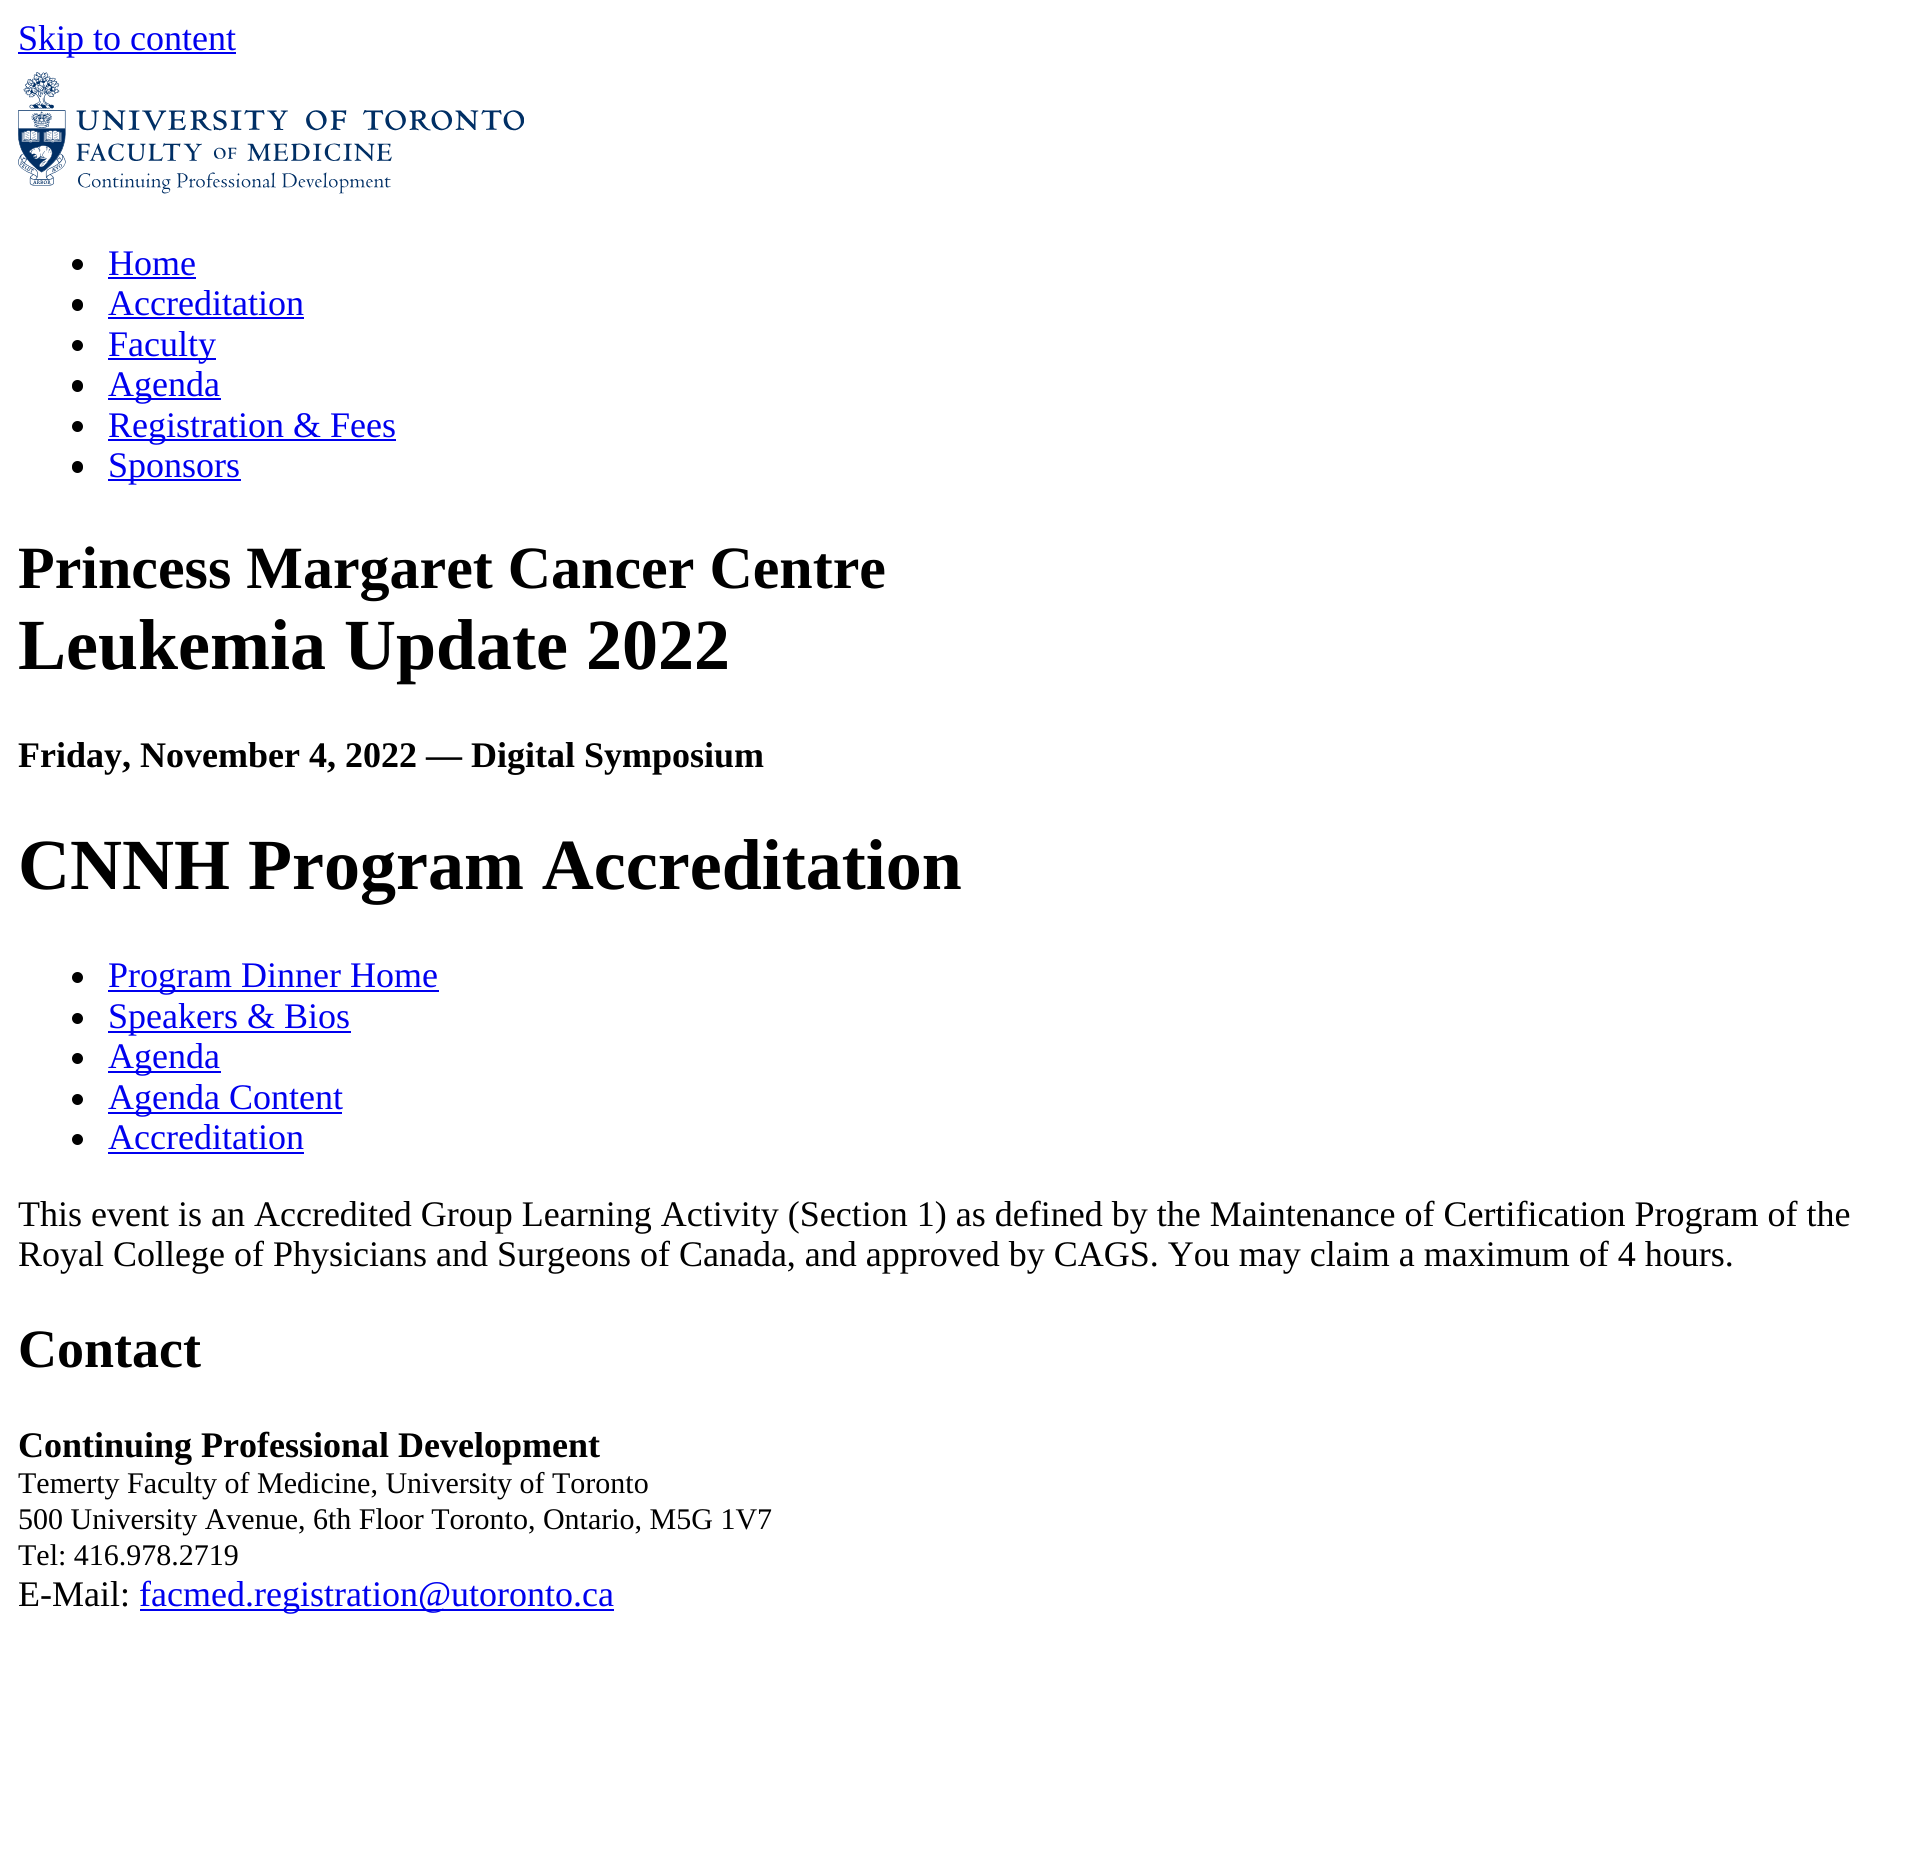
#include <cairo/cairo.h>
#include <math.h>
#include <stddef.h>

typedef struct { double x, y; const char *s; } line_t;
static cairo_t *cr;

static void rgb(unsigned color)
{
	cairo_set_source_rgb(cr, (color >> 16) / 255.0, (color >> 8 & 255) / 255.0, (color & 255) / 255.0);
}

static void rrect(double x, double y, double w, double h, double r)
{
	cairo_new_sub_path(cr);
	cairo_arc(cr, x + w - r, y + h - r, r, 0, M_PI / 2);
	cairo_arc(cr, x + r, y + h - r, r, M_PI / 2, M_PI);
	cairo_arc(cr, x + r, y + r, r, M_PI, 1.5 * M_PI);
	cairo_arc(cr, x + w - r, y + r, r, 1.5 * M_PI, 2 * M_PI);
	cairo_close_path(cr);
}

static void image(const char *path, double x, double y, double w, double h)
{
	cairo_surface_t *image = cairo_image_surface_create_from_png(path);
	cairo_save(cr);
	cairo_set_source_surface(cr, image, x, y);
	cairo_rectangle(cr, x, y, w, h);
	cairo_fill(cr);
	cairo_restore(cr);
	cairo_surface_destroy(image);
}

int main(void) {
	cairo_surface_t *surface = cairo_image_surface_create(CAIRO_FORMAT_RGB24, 1910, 1869);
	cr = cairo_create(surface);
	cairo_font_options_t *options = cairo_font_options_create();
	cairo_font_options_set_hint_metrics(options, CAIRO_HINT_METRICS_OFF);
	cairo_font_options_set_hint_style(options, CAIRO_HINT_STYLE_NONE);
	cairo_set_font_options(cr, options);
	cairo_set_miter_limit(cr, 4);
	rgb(0xffffff);
	cairo_paint(cr);
	rgb(0x0000ee);
	cairo_rectangle(cr, 18, 52, 218, 2);
	cairo_fill(cr);
	image("img/1.png", 18, 72, 506, 122);
	rgb(0x000000);
	cairo_arc(cr, 77.5, 264.5, 5.5, 0, 2 * M_PI);
	cairo_fill(cr);
	rgb(0x0000ee);
	cairo_rectangle(cr, 108, 277, 88, 2);
	cairo_fill(cr);
	rgb(0x000000);
	rrect(72, 299, 11, 12, 5.5);
	cairo_fill(cr);
	rgb(0x0000ee);
	cairo_rectangle(cr, 108, 317, 196, 2);
	cairo_fill(cr);
	rgb(0x000000);
	cairo_arc(cr, 77.5, 345.5, 5.5, 0, 2 * M_PI);
	cairo_fill(cr);
	rgb(0x0000ee);
	cairo_rectangle(cr, 108, 358, 108, 2);
	cairo_fill(cr);
	rgb(0x000000);
	rrect(72, 380, 11, 12, 5.5);
	cairo_fill(cr);
	rgb(0x0000ee);
	cairo_rectangle(cr, 108, 398, 113, 2);
	cairo_fill(cr);
	rgb(0x000000);
	cairo_arc(cr, 77.5, 426.5, 5.5, 0, 2 * M_PI);
	cairo_fill(cr);
	rgb(0x0000ee);
	cairo_rectangle(cr, 108, 439, 288, 2);
	cairo_fill(cr);
	rgb(0x000000);
	rrect(72, 461, 11, 12, 5.5);
	cairo_fill(cr);
	rgb(0x0000ee);
	cairo_rectangle(cr, 108, 479, 133, 2);
	cairo_fill(cr);
	rgb(0x000000);
	cairo_arc(cr, 77.5, 977.5, 5.5, 0, 2 * M_PI);
	cairo_fill(cr);
	rgb(0x0000ee);
	cairo_rectangle(cr, 108, 990, 331, 2);
	cairo_fill(cr);
	rgb(0x000000);
	cairo_arc(cr, 77.5, 1018.5, 5.5, 0, 2 * M_PI);
	cairo_fill(cr);
	rgb(0x0000ee);
	cairo_rectangle(cr, 108, 1031, 243, 2);
	cairo_fill(cr);
	rgb(0x000000);
	cairo_arc(cr, 77.5, 1058.5, 5.5, 0, 2 * M_PI);
	cairo_fill(cr);
	rgb(0x0000ee);
	cairo_rectangle(cr, 108, 1071, 113, 2);
	cairo_fill(cr);
	rgb(0x000000);
	cairo_arc(cr, 77.5, 1099.5, 5.5, 0, 2 * M_PI);
	cairo_fill(cr);
	rgb(0x0000ee);
	cairo_rectangle(cr, 108, 1112, 234, 2);
	cairo_fill(cr);
	rgb(0x000000);
	cairo_arc(cr, 77.5, 1139.5, 5.5, 0, 2 * M_PI);
	cairo_fill(cr);
	rgb(0x0000ee);
	cairo_rectangle(cr, 108, 1152, 196, 2);
	cairo_fill(cr);
	cairo_rectangle(cr, 140, 1609, 474, 2);
	cairo_fill(cr);
	cairo_select_font_face(cr, "Liberation Serif", CAIRO_FONT_SLANT_NORMAL, CAIRO_FONT_WEIGHT_NORMAL);
	cairo_set_font_size(cr, 36);
	{
		static const line_t items[] = {
			{18, 50, "Skip to content"},
			{108, 275, "Home"},
			{108, 315, "Accreditation"},
			{108, 356, "Faculty"},
			{108, 396, "Agenda"},
			{108, 437, "Registration & Fees"},
			{108, 477, "Sponsors"},
		};
		for (size_t i = 0; i < sizeof items / sizeof *items; i++) {
			cairo_move_to(cr, items[i].x, items[i].y);
			cairo_show_text(cr, items[i].s);
		}
	}
	cairo_select_font_face(cr, "Liberation Serif", CAIRO_FONT_SLANT_NORMAL, CAIRO_FONT_WEIGHT_BOLD);
	cairo_set_font_size(cr, 60);
	rgb(0x000000);
	cairo_move_to(cr, 18, 588);
	cairo_show_text(cr, "Princess Margaret Cancer Centre");
	cairo_set_font_size(cr, 72);
	cairo_move_to(cr, 18, 669);
	cairo_show_text(cr, "Leukemia Update 2022");
	cairo_set_font_size(cr, 36);
	cairo_move_to(cr, 18, 767);
	cairo_show_text(cr, "Friday, November 4, 2022 — Digital Symposium");
	cairo_set_font_size(cr, 72);
	cairo_move_to(cr, 18, 889);
	cairo_show_text(cr, "CNNH Program Accreditation");
	cairo_select_font_face(cr, "Liberation Serif", CAIRO_FONT_SLANT_NORMAL, CAIRO_FONT_WEIGHT_NORMAL);
	cairo_set_font_size(cr, 36);
	rgb(0x0000ee);
	{
		static const line_t items[] = {
			{108, 987, "Program Dinner Home"},
			{108, 1028, "Speakers & Bios"},
			{108, 1068, "Agenda"},
			{108, 1109, "Agenda Content"},
			{108, 1149, "Accreditation"},
		};
		for (size_t i = 0; i < sizeof items / sizeof *items; i++) {
			cairo_move_to(cr, items[i].x, items[i].y);
			cairo_show_text(cr, items[i].s);
		}
	}
	rgb(0x000000);
	cairo_move_to(cr, 18, 1226);
	cairo_show_text(cr, "This event is an Accredited Group Learning Activity (Section 1) as defined by the Maintenance of Certification Program of the");
	cairo_move_to(cr, 18, 1266);
	cairo_show_text(cr, "Royal College of Physicians and Surgeons of Canada, and approved by CAGS. You may claim a maximum of 4 hours.");
	cairo_select_font_face(cr, "Liberation Serif", CAIRO_FONT_SLANT_NORMAL, CAIRO_FONT_WEIGHT_BOLD);
	cairo_set_font_size(cr, 54);
	cairo_move_to(cr, 18, 1367);
	cairo_show_text(cr, "Contact");
	cairo_set_font_size(cr, 36);
	cairo_move_to(cr, 18, 1457);
	cairo_show_text(cr, "Continuing Professional Development");
	cairo_select_font_face(cr, "Liberation Serif", CAIRO_FONT_SLANT_NORMAL, CAIRO_FONT_WEIGHT_NORMAL);
	cairo_set_font_size(cr, 30);
	{
		static const line_t items[] = {
			{18, 1493, "Temerty Faculty of Medicine, University of Toronto"},
			{18, 1529, "500 University Avenue, 6th Floor Toronto, Ontario, M5G 1V7"},
			{18, 1565, "Tel: 416.978.2719"},
		};
		for (size_t i = 0; i < sizeof items / sizeof *items; i++) {
			cairo_move_to(cr, items[i].x, items[i].y);
			cairo_show_text(cr, items[i].s);
		}
	}
	cairo_set_font_size(cr, 36);
	cairo_move_to(cr, 18, 1606);
	cairo_show_text(cr, "E-Mail:");
	rgb(0x0000ee);
	cairo_move_to(cr, 139, 1606);
	cairo_show_text(cr, "facmed.registration@utoronto.ca");
	cairo_surface_write_to_png(surface, "page.png");
	cairo_font_options_destroy(options);
	cairo_destroy(cr);
	cairo_surface_destroy(surface);
	return 0;
}
